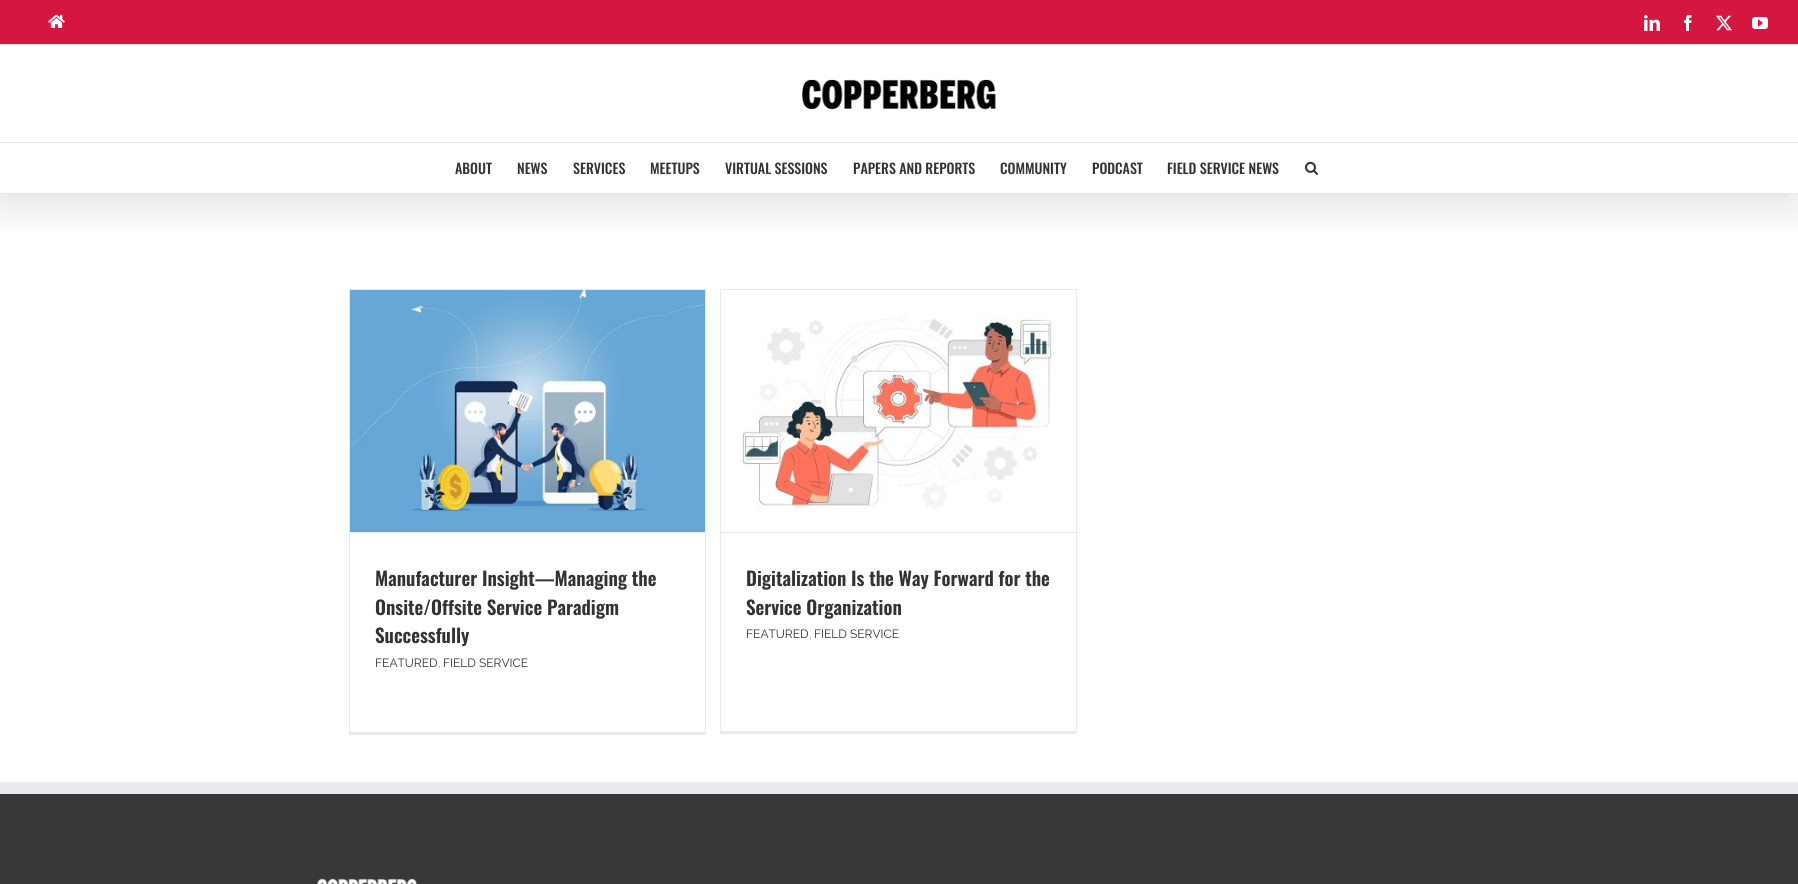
#include <cairo/cairo.h>
#include <math.h>
#include <stddef.h>

typedef struct { double x, y; const char *s; } line_t;
typedef struct { double x, y, w, h; unsigned color; } box_t;
static cairo_t *cr;

static void rgb(unsigned color)
{
	cairo_set_source_rgb(cr, (color >> 16) / 255.0, (color >> 8 & 255) / 255.0, (color & 255) / 255.0);
}

static void rrect(double x, double y, double w, double h, double r)
{
	cairo_new_sub_path(cr);
	cairo_arc(cr, x + w - r, y + h - r, r, 0, M_PI / 2);
	cairo_arc(cr, x + r, y + h - r, r, M_PI / 2, M_PI);
	cairo_arc(cr, x + r, y + r, r, M_PI, 1.5 * M_PI);
	cairo_arc(cr, x + w - r, y + r, r, 1.5 * M_PI, 2 * M_PI);
	cairo_close_path(cr);
}

static void soft_shadow(double x, double y, double w, double h, double r, double blur, double alpha)
{
	cairo_push_group_with_content(cr, CAIRO_CONTENT_ALPHA);
	cairo_set_operator(cr, CAIRO_OPERATOR_SOURCE);
	for (int i = 15; i >= -15 && fmin(w, h) + blur * i / 3 > 0; i -= 2) {
		double e = blur * i / 6;
		cairo_set_source_rgba(cr, 0, 0, 0, alpha * erfc((i - 1) / 8.5) / 2);
		rrect(x - e, y - e, w + 2 * e, h + 2 * e, fmax(0, fmin(r + e + blur * .6, fmin(w, h) / 2 + e)));
		cairo_fill(cr);
	}
	cairo_pattern_t *soft = cairo_pop_group(cr);
	cairo_mask(cr, soft);
	cairo_pattern_destroy(soft);
}

static void image(const char *path, double x, double y, double w, double h)
{
	cairo_surface_t *image = cairo_image_surface_create_from_png(path);
	cairo_save(cr);
	cairo_set_source_surface(cr, image, x, y);
	cairo_rectangle(cr, x, y, w, h);
	cairo_fill(cr);
	cairo_restore(cr);
	cairo_surface_destroy(image);
}

int main(void) {
	cairo_surface_t *surface = cairo_image_surface_create(CAIRO_FORMAT_RGB24, 1798, 884);
	cr = cairo_create(surface);
	cairo_font_options_t *options = cairo_font_options_create();
	cairo_font_options_set_hint_metrics(options, CAIRO_HINT_METRICS_OFF);
	cairo_font_options_set_hint_style(options, CAIRO_HINT_STYLE_NONE);
	cairo_set_font_options(cr, options);
	cairo_set_miter_limit(cr, 4);
	rgb(0xffffff);
	cairo_paint(cr);
	cairo_save(cr);
	cairo_rectangle(cr, 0, 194, 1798, 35);
	cairo_clip(cr);
	rgb(0x000000);
	soft_shadow(2, 12, 1794, 190, 0, 25, 0.14);
	cairo_restore(cr);
	rgb(0xd5173f);
	cairo_rectangle(cr, 0, 0, 1798, 44);
	cairo_fill(cr);
	rgb(0xe5e5e5);
	cairo_rectangle(cr, 0, 44, 1798, 1);
	cairo_fill(cr);
	image("img/1.png", 48, 14, 17, 14);
	image("img/2.png", 1644, 15, 16, 16);
	image("img/3.png", 1684, 15, 8, 16);
	image("img/4.png", 1716, 15, 16, 16);
	image("img/5.png", 1752, 17, 16, 12);
	cairo_rectangle(cr, 0, 142, 1798, 1);
	cairo_fill(cr);
	image("img/6.png", 802, 79, 194, 31);
	cairo_rectangle(cr, 0, 193, 1798, 1);
	cairo_fill(cr);
	image("img/7.png", 1305, 161, 13, 14);
	{
		static const box_t items[] = {
			{349, 289, 357, 1, 0xebeaea},
			{705, 289, 1, 446, 0xebeaea},
			{349, 732, 357, 3, 0xebeaea},
			{349, 289, 1, 446, 0xebeaea},
			{350, 532, 355, 1, 0xebeaea},
		};
		for (size_t i = 0; i < sizeof items / sizeof *items; i++) {
			rgb(items[i].color);
			cairo_rectangle(cr, items[i].x, items[i].y, items[i].w, items[i].h);
			cairo_fill(cr);
		}
	}
	image("img/8.png", 350, 290, 355, 242);
	{
		static const box_t items[] = {
			{720, 289, 357, 1, 0xebeaea},
			{1076, 289, 1, 445, 0xebeaea},
			{720, 731, 357, 3, 0xebeaea},
			{720, 289, 1, 445, 0xebeaea},
			{721, 532, 355, 1, 0xebeaea},
		};
		for (size_t i = 0; i < sizeof items / sizeof *items; i++) {
			rgb(items[i].color);
			cairo_rectangle(cr, items[i].x, items[i].y, items[i].w, items[i].h);
			cairo_fill(cr);
		}
	}
	image("img/9.png", 742, 315, 313, 197);
	rgb(0x363839);
	cairo_rectangle(cr, 0, 794, 1798, 90);
	cairo_fill(cr);
	rgb(0xe9eaee);
	cairo_rectangle(cr, 0, 782, 1798, 12);
	cairo_fill(cr);
	image("img/10.png", 316, 879, 101, 5);
	cairo_select_font_face(cr, "Oswald Medium", CAIRO_FONT_SLANT_NORMAL, CAIRO_FONT_WEIGHT_NORMAL);
	cairo_set_font_size(cr, 14);
	rgb(0x333333);
	{
		static const line_t items[] = {
			{455, 174, "ABOUT"},
			{517, 174, "NEWS"},
			{573, 174, "SERVICES"},
			{650, 174, "MEETUPS"},
			{725, 174, "VIRTUAL SESSIONS"},
			{853, 174, "PAPERS AND REPORTS"},
			{1000, 174, "COMMUNITY"},
			{1092, 174, "PODCAST"},
			{1167, 174, "FIELD SERVICE NEWS"},
		};
		for (size_t i = 0; i < sizeof items / sizeof *items; i++) {
			cairo_move_to(cr, items[i].x, items[i].y);
			cairo_show_text(cr, items[i].s);
		}
	}
	cairo_select_font_face(cr, "Oswald SemiBold", CAIRO_FONT_SLANT_NORMAL, CAIRO_FONT_WEIGHT_NORMAL);
	cairo_set_font_size(cr, 19);
	{
		static const line_t items[] = {
			{375, 586, "Manufacturer Insight—Managing the"},
			{375, 615, "Onsite/Offsite Service Paradigm"},
			{375, 643, "Successfully"},
		};
		for (size_t i = 0; i < sizeof items / sizeof *items; i++) {
			cairo_move_to(cr, items[i].x, items[i].y);
			cairo_show_text(cr, items[i].s);
		}
	}
	cairo_select_font_face(cr, "Raleway", CAIRO_FONT_SLANT_NORMAL, CAIRO_FONT_WEIGHT_NORMAL);
	cairo_set_font_size(cr, 12);
	cairo_move_to(cr, 375, 667);
	cairo_show_text(cr, "FEATURED");
	rgb(0x949494);
	cairo_move_to(cr, 438, 667);
	cairo_show_text(cr, ",");
	rgb(0x333333);
	cairo_move_to(cr, 443, 667);
	cairo_show_text(cr, "FIELD SERVICE");
	cairo_select_font_face(cr, "Oswald SemiBold", CAIRO_FONT_SLANT_NORMAL, CAIRO_FONT_WEIGHT_NORMAL);
	cairo_set_font_size(cr, 19);
	cairo_move_to(cr, 746, 586);
	cairo_show_text(cr, "Digitalization Is the Way Forward for the");
	cairo_move_to(cr, 746, 615);
	cairo_show_text(cr, "Service Organization");
	cairo_select_font_face(cr, "Raleway", CAIRO_FONT_SLANT_NORMAL, CAIRO_FONT_WEIGHT_NORMAL);
	cairo_set_font_size(cr, 12);
	cairo_move_to(cr, 746, 638);
	cairo_show_text(cr, "FEATURED");
	rgb(0x949494);
	cairo_move_to(cr, 809, 638);
	cairo_show_text(cr, ",");
	rgb(0x333333);
	cairo_move_to(cr, 814, 638);
	cairo_show_text(cr, "FIELD SERVICE");
	cairo_surface_write_to_png(surface, "page.png");
	cairo_font_options_destroy(options);
	cairo_destroy(cr);
	cairo_surface_destroy(surface);
	return 0;
}
